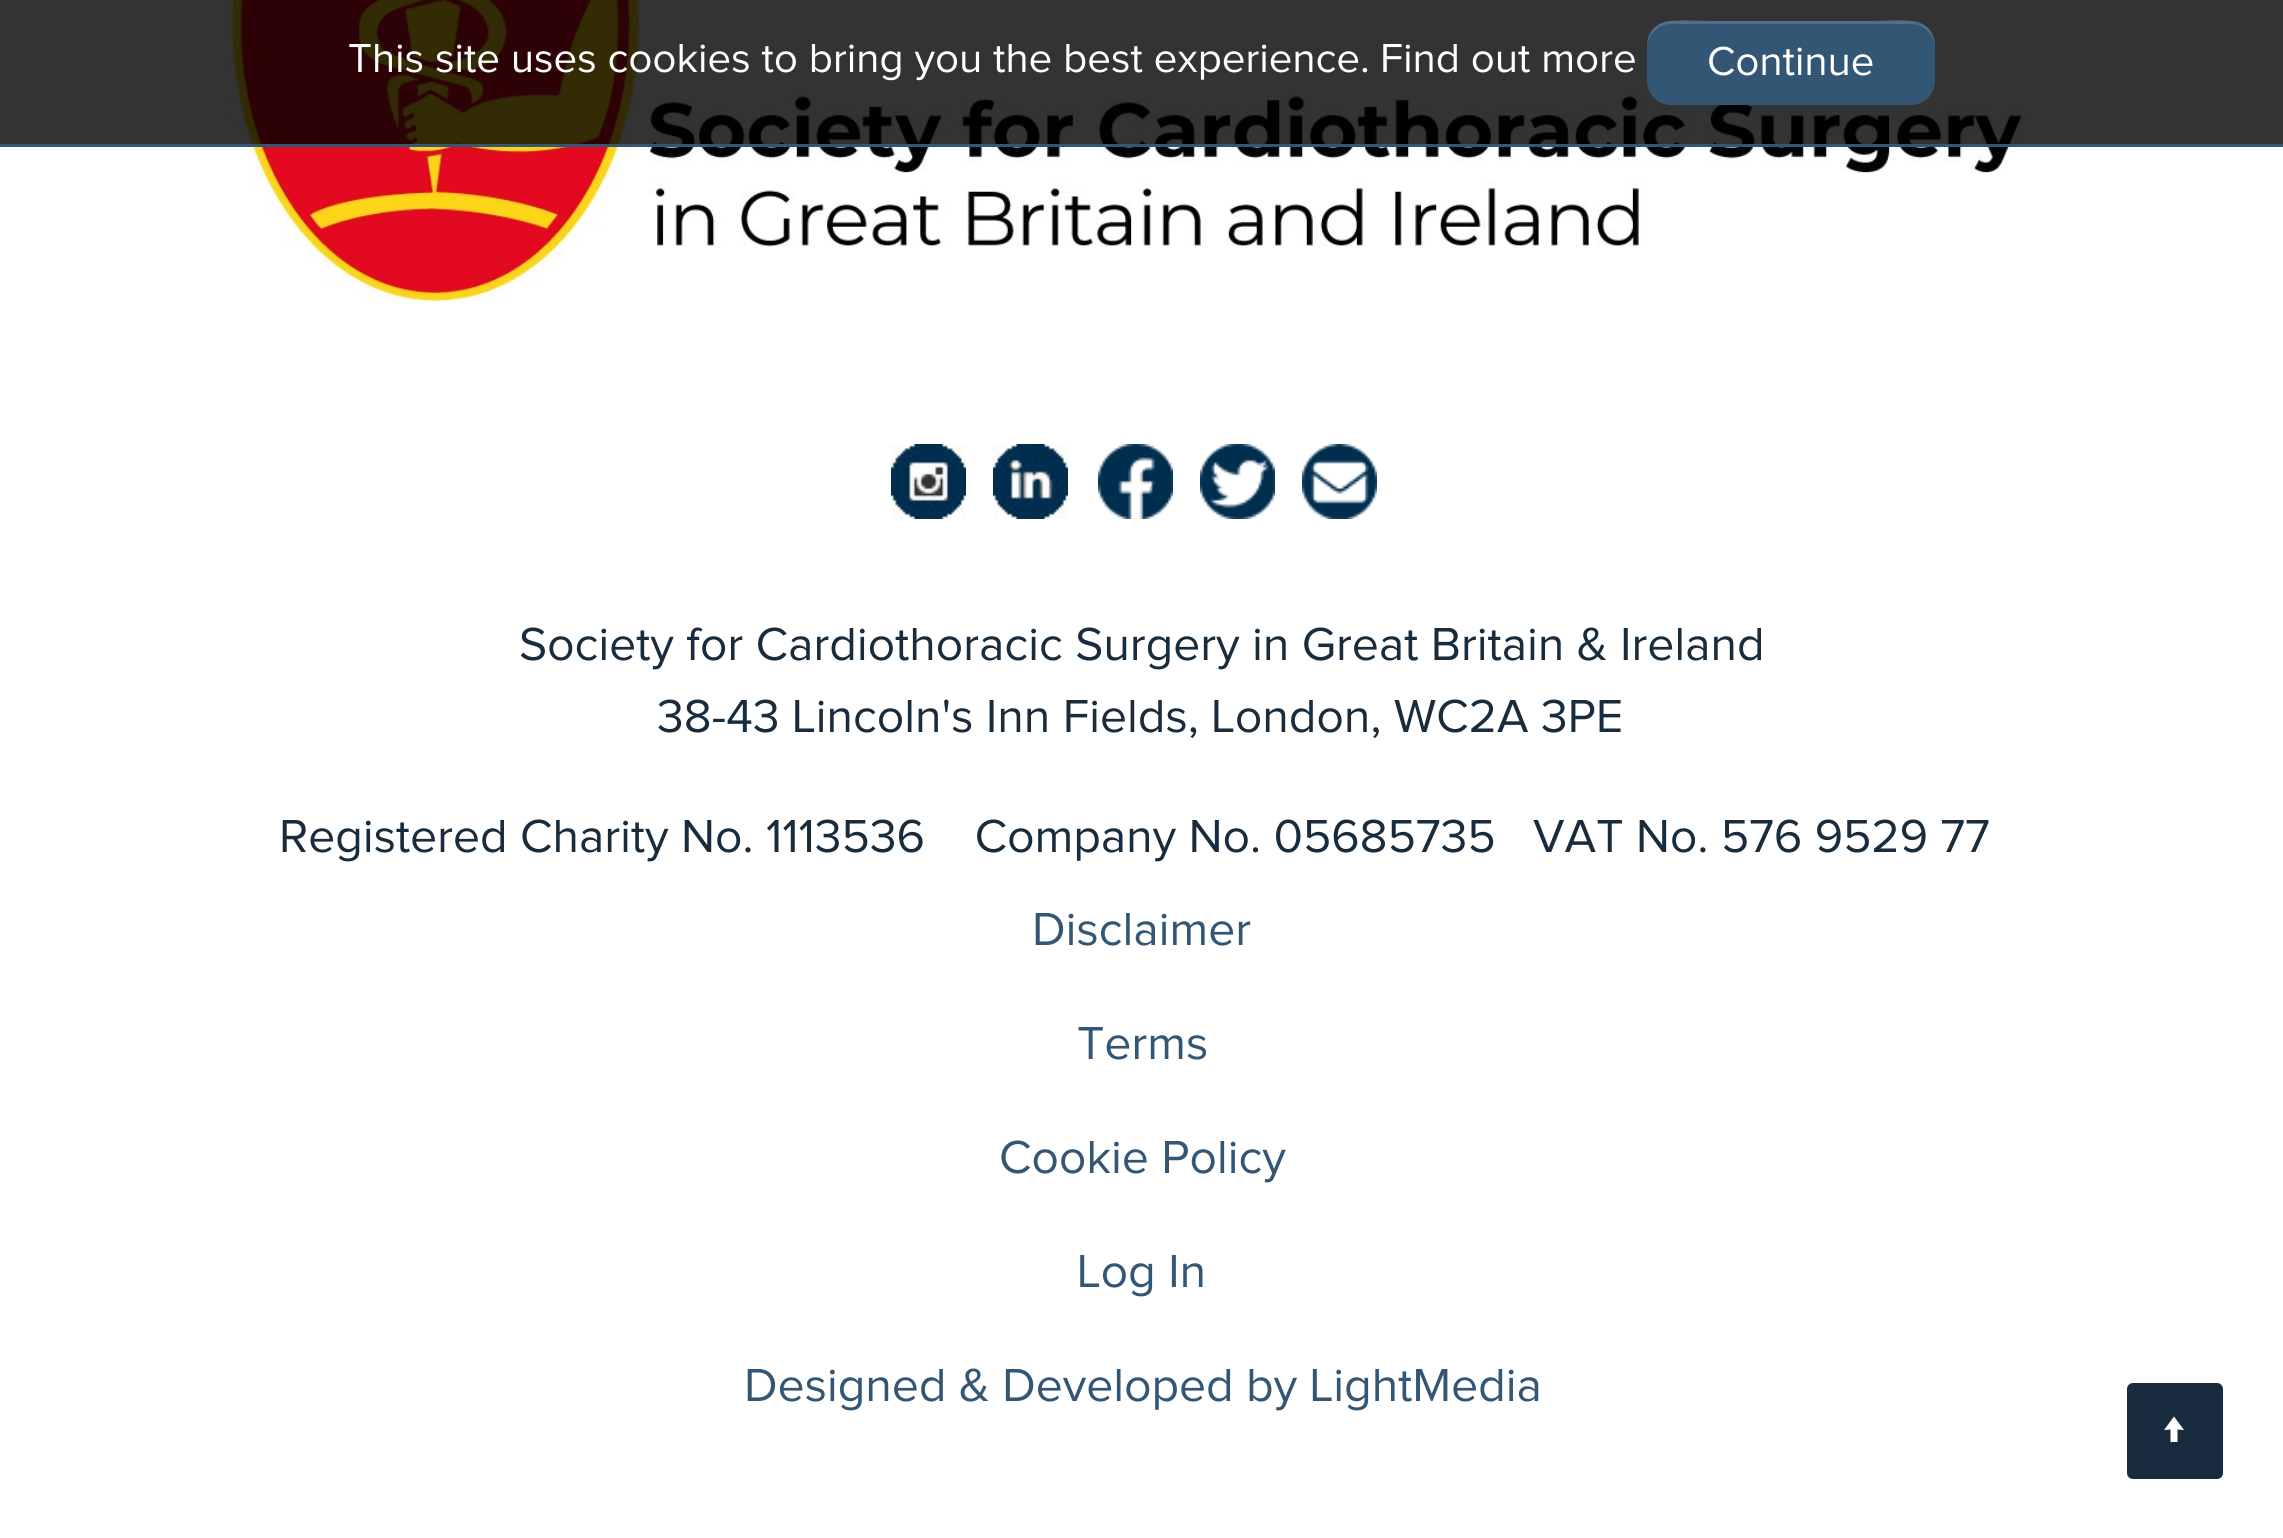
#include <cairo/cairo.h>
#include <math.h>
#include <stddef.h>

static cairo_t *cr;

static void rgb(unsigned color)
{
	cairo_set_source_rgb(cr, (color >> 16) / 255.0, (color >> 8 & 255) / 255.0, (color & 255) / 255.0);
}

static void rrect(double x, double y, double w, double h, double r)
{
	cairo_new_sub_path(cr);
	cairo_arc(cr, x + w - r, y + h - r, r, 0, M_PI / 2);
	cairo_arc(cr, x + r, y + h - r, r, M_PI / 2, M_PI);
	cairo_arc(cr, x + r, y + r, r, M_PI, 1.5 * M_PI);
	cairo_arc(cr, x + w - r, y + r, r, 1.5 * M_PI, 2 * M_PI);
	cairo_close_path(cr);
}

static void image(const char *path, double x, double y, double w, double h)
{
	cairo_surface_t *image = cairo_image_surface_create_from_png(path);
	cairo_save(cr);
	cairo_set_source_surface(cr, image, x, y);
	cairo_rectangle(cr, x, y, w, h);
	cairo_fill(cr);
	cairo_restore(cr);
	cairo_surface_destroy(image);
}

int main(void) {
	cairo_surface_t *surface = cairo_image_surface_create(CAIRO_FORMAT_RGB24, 2283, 1538);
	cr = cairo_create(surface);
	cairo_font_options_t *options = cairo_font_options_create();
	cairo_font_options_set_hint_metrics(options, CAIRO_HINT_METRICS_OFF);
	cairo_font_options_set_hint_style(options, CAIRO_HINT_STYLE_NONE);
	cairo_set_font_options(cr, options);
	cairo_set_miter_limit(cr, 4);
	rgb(0xffffff);
	cairo_paint(cr);
	image("img/4.png", 228, 0, 1797, 304);
	cairo_set_source_rgba(cr, 0, 0, 0, 0.8);
	cairo_rectangle(cr, 0, 0, 2283, 144);
	cairo_fill(cr);
	rgb(0x335674);
	cairo_rectangle(cr, 0, 144, 2283, 3);
	cairo_fill(cr);
	image("img/1.png", 349, 44, 1019, 37);
	image("img/2.png", 1383, 44, 252, 29);
	rrect(1647, 21, 288, 84, 24);
	cairo_fill(cr);
	cairo_set_source_rgba(cr, 1, 1, 1, 0.15);
	cairo_new_path(cr);
	cairo_move_to(cr, 1671, 24);
	cairo_line_to(cr, 1911, 24);
	cairo_curve_to(cr, 1924, 24, 1935, 35, 1935, 48);
	cairo_curve_to(cr, 1935, 12, 1896, 21, 1871, 21);
	cairo_line_to(cr, 1711, 21);
	cairo_curve_to(cr, 1686, 21, 1647, 12, 1647, 48);
	cairo_curve_to(cr, 1647, 35, 1658, 24, 1671, 24);
	cairo_close_path(cr);
	cairo_fill(cr);
	image("img/3.png", 1709, 46, 164, 30);
	image("img/5.png", 891, 444, 75, 75);
	image("img/6.png", 993, 444, 75, 75);
	image("img/7.png", 1098, 444, 75, 75);
	image("img/8.png", 1200, 444, 75, 75);
	image("img/9.png", 1302, 444, 75, 75);
	image("img/10.png", 520, 627, 1241, 43);
	image("img/11.png", 658, 699, 963, 39);
	image("img/12.png", 282, 819, 1707, 43);
	image("img/13.png", 1035, 913, 216, 33);
	image("img/14.png", 1078, 1027, 129, 33);
	image("img/15.png", 1001, 1140, 285, 43);
	image("img/16.png", 1080, 1255, 123, 42);
	image("img/17.png", 747, 1368, 792, 43);
	rgb(0x182c3d);
	rrect(2127, 1383, 96, 96, 6);
	cairo_fill(cr);
	rgb(0xffffff);
	cairo_new_path(cr);
	cairo_move_to(cr, 2170.5, 1442);
	cairo_line_to(cr, 2177.5, 1442);
	cairo_line_to(cr, 2177.5, 1429.5);
	cairo_line_to(cr, 2184, 1430);
	cairo_line_to(cr, 2174, 1416.5);
	cairo_line_to(cr, 2164, 1430);
	cairo_line_to(cr, 2170.5, 1429.5);
	cairo_close_path(cr);
	cairo_fill(cr);
	cairo_surface_write_to_png(surface, "page.png");
	cairo_font_options_destroy(options);
	cairo_destroy(cr);
	cairo_surface_destroy(surface);
	return 0;
}
